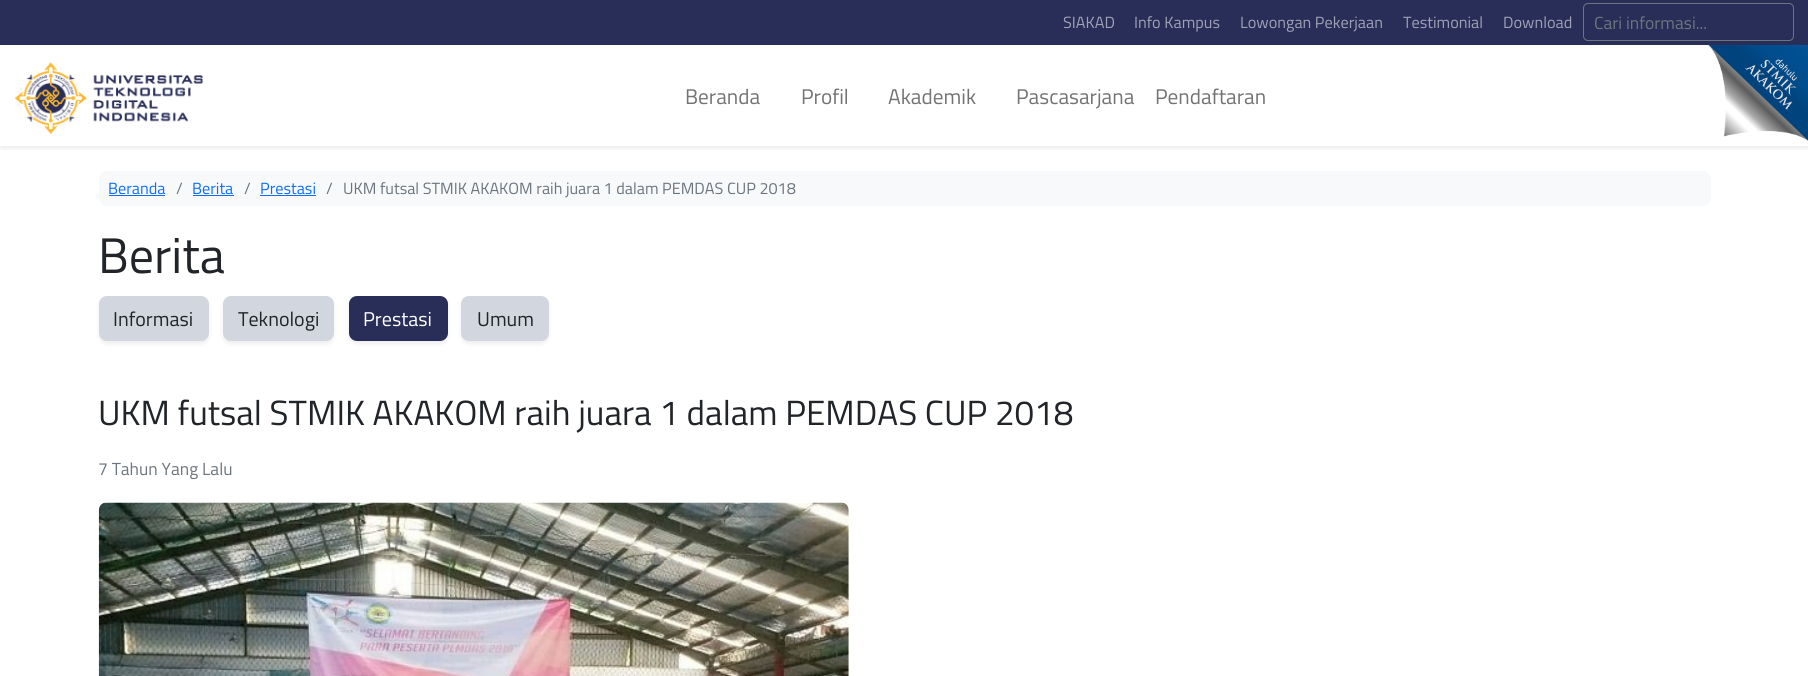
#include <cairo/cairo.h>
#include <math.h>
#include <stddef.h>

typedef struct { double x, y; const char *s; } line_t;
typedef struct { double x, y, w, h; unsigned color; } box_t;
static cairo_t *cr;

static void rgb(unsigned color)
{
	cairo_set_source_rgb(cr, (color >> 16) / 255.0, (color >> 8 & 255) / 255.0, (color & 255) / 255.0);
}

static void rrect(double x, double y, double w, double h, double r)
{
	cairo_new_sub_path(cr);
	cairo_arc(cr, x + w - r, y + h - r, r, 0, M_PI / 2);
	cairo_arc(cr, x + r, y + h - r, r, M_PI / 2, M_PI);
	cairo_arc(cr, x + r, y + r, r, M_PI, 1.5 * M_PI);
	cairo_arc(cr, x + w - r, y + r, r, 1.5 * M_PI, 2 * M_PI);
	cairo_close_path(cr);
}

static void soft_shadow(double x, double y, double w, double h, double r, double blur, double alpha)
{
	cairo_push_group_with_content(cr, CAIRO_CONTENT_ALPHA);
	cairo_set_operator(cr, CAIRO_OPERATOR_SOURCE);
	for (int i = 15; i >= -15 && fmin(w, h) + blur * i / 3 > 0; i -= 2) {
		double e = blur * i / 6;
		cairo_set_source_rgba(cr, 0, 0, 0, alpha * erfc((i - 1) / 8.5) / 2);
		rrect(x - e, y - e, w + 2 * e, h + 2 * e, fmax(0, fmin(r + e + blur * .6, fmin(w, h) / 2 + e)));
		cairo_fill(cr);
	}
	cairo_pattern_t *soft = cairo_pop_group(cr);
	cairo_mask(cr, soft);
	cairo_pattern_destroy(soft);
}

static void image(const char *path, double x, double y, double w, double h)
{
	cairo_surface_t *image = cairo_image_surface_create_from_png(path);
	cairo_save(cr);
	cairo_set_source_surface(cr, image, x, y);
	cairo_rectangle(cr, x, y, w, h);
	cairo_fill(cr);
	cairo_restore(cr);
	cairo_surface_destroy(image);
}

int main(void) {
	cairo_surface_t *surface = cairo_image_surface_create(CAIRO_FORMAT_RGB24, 1808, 676);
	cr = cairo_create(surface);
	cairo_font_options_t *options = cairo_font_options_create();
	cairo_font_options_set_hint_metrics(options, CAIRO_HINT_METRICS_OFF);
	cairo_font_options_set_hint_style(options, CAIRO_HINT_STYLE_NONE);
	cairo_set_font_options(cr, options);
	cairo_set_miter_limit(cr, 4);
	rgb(0xffffff);
	cairo_paint(cr);
	rgb(0x292e59);
	cairo_rectangle(cr, 0, 0, 1808, 45);
	cairo_fill(cr);
	rrect(1583.5, 3.5, 210, 37, 4.5);
	rgb(0x6c757d);
	cairo_set_line_width(cr, 1);
	cairo_stroke(cr);
	cairo_save(cr);
	cairo_rectangle(cr, 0, 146, 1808, 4);
	cairo_clip(cr);
	rgb(0x000000);
	soft_shadow(0, 48, 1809, 101, 0, 2.5, 0.07);
	cairo_restore(cr);
	image("img/1.png", 15, 62, 188, 72);
	image("img/2.png", 1708, 45, 100, 96);
	rgb(0xf8f9fa);
	rrect(99, 171, 1612, 35, 8);
	cairo_fill(cr);
	{
		static const box_t items[] = {
			{109, 195, 56, 1, 0x0d6efd},
			{193, 195, 41, 1, 0x0d6efd},
			{260, 195, 56, 1, 0x0d6efd},
		};
		for (size_t i = 0; i < sizeof items / sizeof *items; i++) {
			rgb(items[i].color);
			cairo_rectangle(cr, items[i].x, items[i].y, items[i].w, items[i].h);
			cairo_fill(cr);
		}
	}
	rgb(0x000000);
	soft_shadow(99, 299, 110, 45, 8, 2.5, 0.07);
	rgb(0xd2d6de);
	rrect(99, 296, 110, 45, 8);
	cairo_fill(cr);
	rgb(0x000000);
	soft_shadow(223, 299, 111, 45, 8, 2.5, 0.07);
	rgb(0xd2d6de);
	rrect(223, 296, 111, 45, 8);
	cairo_fill(cr);
	rgb(0x000000);
	soft_shadow(349, 299, 99, 45, 8, 2.5, 0.07);
	rgb(0x292e59);
	rrect(349, 296, 99, 45, 8);
	cairo_fill(cr);
	rgb(0x000000);
	soft_shadow(461, 299, 88, 45, 8, 2.5, 0.07);
	rgb(0xd2d6de);
	rrect(461, 296, 88, 45, 8);
	cairo_fill(cr);
	image("img/3.png", 98, 502, 751, 174);
	cairo_select_font_face(cr, "Titillium Web", CAIRO_FONT_SLANT_NORMAL, CAIRO_FONT_WEIGHT_NORMAL);
	cairo_set_font_size(cr, 16.25);
	rgb(0x9fa1b4);
	{
		static const line_t items[] = {
			{1063, 28, "SIAKAD"},
			{1134, 28, "Info Kampus"},
			{1240, 28, "Lowongan Pekerjaan"},
			{1403, 28, "Testimonial"},
			{1503, 28, "Download"},
		};
		for (size_t i = 0; i < sizeof items / sizeof *items; i++) {
			cairo_move_to(cr, items[i].x, items[i].y);
			cairo_show_text(cr, items[i].s);
		}
	}
	cairo_set_font_size(cr, 17.5);
	rgb(0x6c757d);
	cairo_move_to(cr, 1594, 29);
	cairo_show_text(cr, "Cari informasi...");
	cairo_set_font_size(cr, 21.25);
	rgb(0x737373);
	{
		static const line_t items[] = {
			{685, 104, "Beranda"},
			{801, 104, "Profil"},
			{888, 104, "Akademik"},
			{1016, 104, "Pascasarjana"},
			{1155, 104, "Pendaftaran"},
		};
		for (size_t i = 0; i < sizeof items / sizeof *items; i++) {
			cairo_move_to(cr, items[i].x, items[i].y);
			cairo_show_text(cr, items[i].s);
		}
	}
	cairo_set_font_size(cr, 16.25);
	rgb(0x0d6efd);
	cairo_move_to(cr, 108, 194);
	cairo_show_text(cr, "Beranda");
	rgb(0x6c757d);
	cairo_move_to(cr, 176, 194);
	cairo_show_text(cr, "/");
	rgb(0x0d6efd);
	cairo_move_to(cr, 192, 194);
	cairo_show_text(cr, "Berita");
	rgb(0x6c757d);
	cairo_move_to(cr, 244, 194);
	cairo_show_text(cr, "/");
	rgb(0x0d6efd);
	cairo_move_to(cr, 260, 194);
	cairo_show_text(cr, "Prestasi");
	rgb(0x6c757d);
	cairo_move_to(cr, 326, 194);
	cairo_show_text(cr, "/");
	cairo_move_to(cr, 343, 194);
	cairo_show_text(cr, "UKM futsal STMIK AKAKOM raih juara 1 dalam PEMDAS CUP 2018");
	cairo_set_font_size(cr, 50);
	rgb(0x212529);
	cairo_move_to(cr, 98, 273);
	cairo_show_text(cr, "Berita");
	cairo_set_font_size(cr, 20);
	cairo_move_to(cr, 113, 326);
	cairo_show_text(cr, "Informasi");
	cairo_move_to(cr, 238, 326);
	cairo_show_text(cr, "Teknologi");
	rgb(0xffffff);
	cairo_move_to(cr, 363, 326);
	cairo_show_text(cr, "Prestasi");
	rgb(0x212529);
	cairo_move_to(cr, 477, 326);
	cairo_show_text(cr, "Umum");
	cairo_set_font_size(cr, 35);
	cairo_move_to(cr, 98, 425);
	cairo_show_text(cr, "UKM futsal STMIK AKAKOM raih juara 1 dalam PEMDAS CUP 2018");
	cairo_set_font_size(cr, 17.5);
	rgb(0x6c757d);
	cairo_move_to(cr, 98, 475);
	cairo_show_text(cr, "7 Tahun Yang Lalu");
	cairo_surface_write_to_png(surface, "page.png");
	cairo_font_options_destroy(options);
	cairo_destroy(cr);
	cairo_surface_destroy(surface);
	return 0;
}
